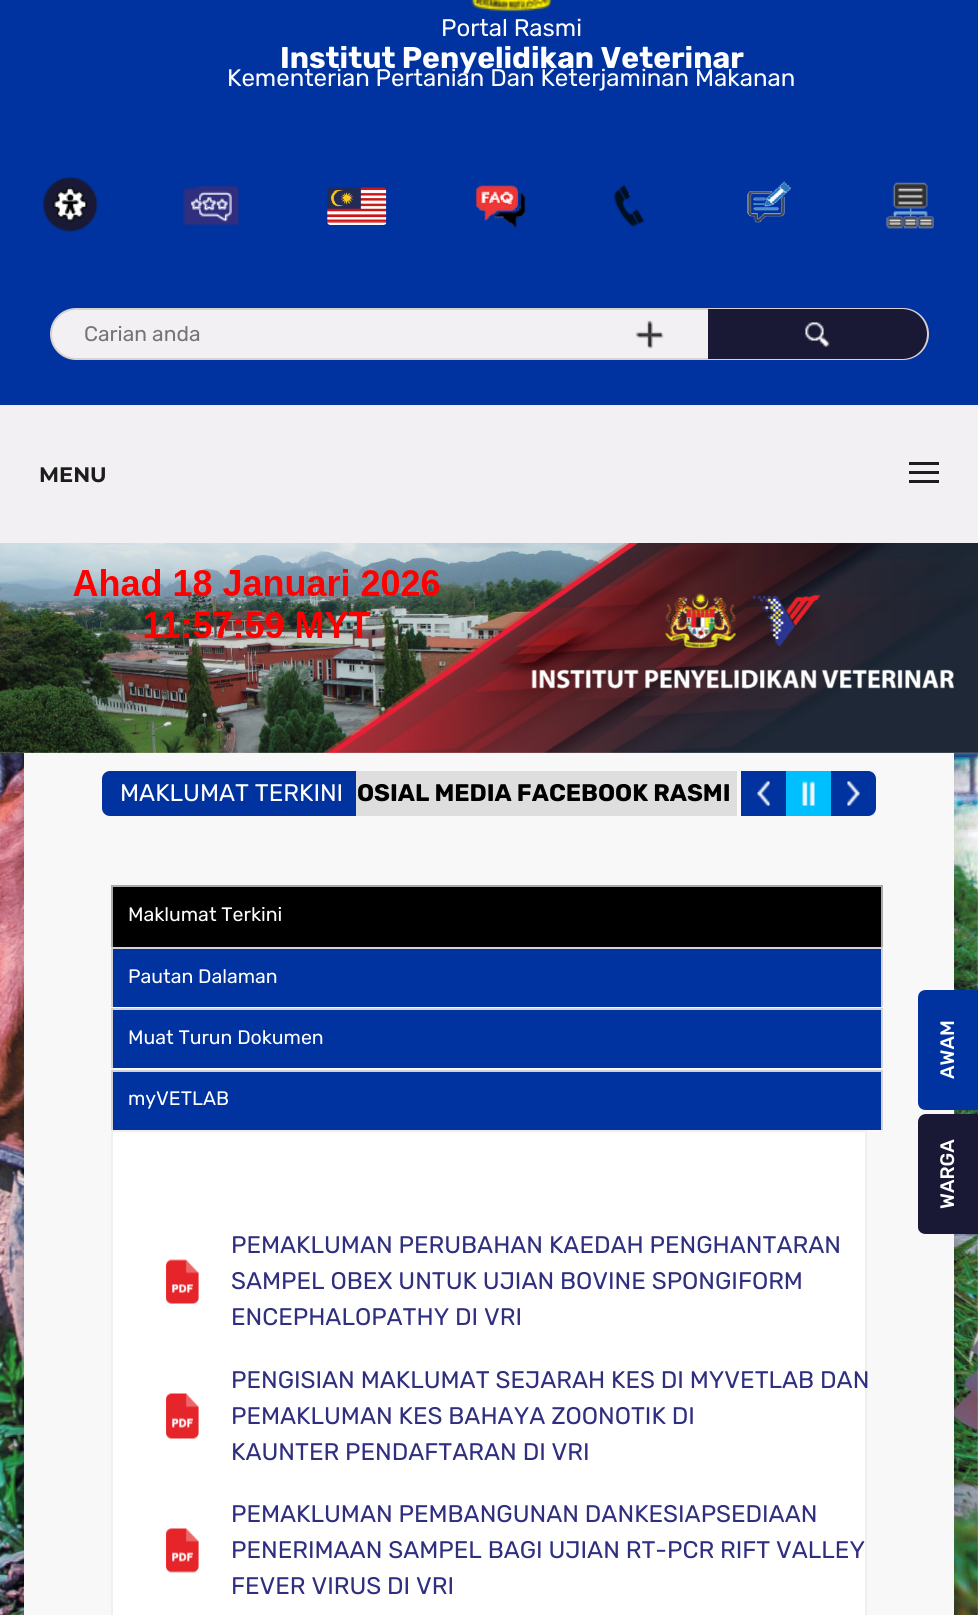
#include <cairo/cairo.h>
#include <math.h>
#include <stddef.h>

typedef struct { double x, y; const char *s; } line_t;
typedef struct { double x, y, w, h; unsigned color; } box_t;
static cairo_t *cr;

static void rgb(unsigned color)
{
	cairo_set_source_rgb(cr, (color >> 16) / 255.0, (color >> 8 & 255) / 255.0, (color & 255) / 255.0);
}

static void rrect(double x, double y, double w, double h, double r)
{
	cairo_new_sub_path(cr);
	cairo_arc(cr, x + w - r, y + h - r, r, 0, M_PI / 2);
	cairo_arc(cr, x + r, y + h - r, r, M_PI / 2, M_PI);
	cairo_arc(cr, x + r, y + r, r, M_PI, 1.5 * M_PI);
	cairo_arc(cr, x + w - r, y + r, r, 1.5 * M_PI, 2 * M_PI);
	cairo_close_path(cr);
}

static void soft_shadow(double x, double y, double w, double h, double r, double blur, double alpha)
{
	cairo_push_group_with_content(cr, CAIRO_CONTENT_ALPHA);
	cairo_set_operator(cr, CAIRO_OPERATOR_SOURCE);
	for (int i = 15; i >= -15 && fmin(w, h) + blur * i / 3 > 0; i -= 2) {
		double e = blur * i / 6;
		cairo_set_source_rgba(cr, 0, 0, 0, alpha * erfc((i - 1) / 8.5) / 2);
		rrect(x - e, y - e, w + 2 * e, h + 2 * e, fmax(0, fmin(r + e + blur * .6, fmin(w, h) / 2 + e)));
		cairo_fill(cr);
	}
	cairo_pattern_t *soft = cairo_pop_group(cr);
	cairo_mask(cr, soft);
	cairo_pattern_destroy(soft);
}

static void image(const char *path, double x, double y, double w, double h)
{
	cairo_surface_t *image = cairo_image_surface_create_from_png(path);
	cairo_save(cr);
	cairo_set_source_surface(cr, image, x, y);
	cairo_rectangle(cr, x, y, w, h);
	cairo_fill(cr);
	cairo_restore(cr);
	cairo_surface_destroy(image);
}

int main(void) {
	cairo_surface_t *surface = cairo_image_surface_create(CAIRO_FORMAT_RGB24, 978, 1615);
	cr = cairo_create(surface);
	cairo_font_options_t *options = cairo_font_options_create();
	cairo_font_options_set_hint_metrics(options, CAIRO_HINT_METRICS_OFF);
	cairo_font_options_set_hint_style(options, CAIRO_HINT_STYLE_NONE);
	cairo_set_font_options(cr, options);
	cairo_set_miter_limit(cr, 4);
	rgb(0xffffff);
	cairo_paint(cr);
	image("img/1.png", 0, 753, 978, 862);
	rgb(0x0032a0);
	cairo_rectangle(cr, 0, 0, 978, 405);
	cairo_fill(cr);
	image("img/2.png", 471, 0, 81, 12);
	image("img/3.png", 43, 177, 55, 55);
	image("img/4.png", 183, 185, 56, 41);
	image("img/5.png", 327, 187, 60, 38);
	image("img/6.png", 476, 185, 50, 44);
	image("img/7.png", 613, 185, 31, 42);
	image("img/8.png", 747, 181, 44, 42);
	image("img/9.png", 886, 182, 48, 47);
	rgb(0xf2f0f2);
	rrect(51, 309, 877, 50, 25);
	cairo_fill_preserve(cr);
	rgb(0xd8d2d2);
	cairo_stroke(cr);
	image("img/10.png", 635, 320, 29, 29);
	rgb(0x1a1935);
	cairo_new_path(cr);
	cairo_move_to(cr, 708, 309);
	cairo_line_to(cr, 902, 309);
	cairo_curve_to(cr, 916, 309, 927, 320, 927, 334);
	cairo_curve_to(cr, 927, 348, 916, 359, 902, 359);
	cairo_line_to(cr, 708, 359);
	cairo_close_path(cr);
	cairo_fill(cr);
	image("img/11.png", 805, 322, 25, 25);
	{
		static const box_t items[] = {
			{0, 405, 978, 138, 0xf2f0f2},
			{909, 462, 30, 3, 0x1d1d1d},
			{909, 471, 30, 3, 0x1d1d1d},
			{909, 480, 30, 3, 0x1d1d1d},
		};
		for (size_t i = 0; i < sizeof items / sizeof *items; i++) {
			rgb(items[i].color);
			cairo_rectangle(cr, items[i].x, items[i].y, items[i].w, items[i].h);
			cairo_fill(cr);
		}
	}
	rgb(0x000000);
	soft_shadow(18, 747, 942, 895, 0, 9, 0.11);
	rgb(0xd9d9d9);
	cairo_rectangle(cr, 0, 543, 978, 210);
	cairo_fill(cr);
	image("img/12.png", 0, 543, 978, 210);
	image("img/13.png", 73, 569, 367, 69);
	rgb(0xf9f8f9);
	cairo_rectangle(cr, 24, 753, 930, 862);
	cairo_fill(cr);
	rgb(0x0032a0);
	cairo_new_path(cr);
	cairo_move_to(cr, 110, 771);
	cairo_line_to(cr, 356, 771);
	cairo_line_to(cr, 356, 816);
	cairo_line_to(cr, 110, 816);
	cairo_curve_to(cr, 105.5, 816, 102, 812.5, 102, 808);
	cairo_line_to(cr, 102, 779);
	cairo_curve_to(cr, 102, 774.5, 105.5, 771, 110, 771);
	cairo_close_path(cr);
	cairo_fill(cr);
	rgb(0xdedede);
	cairo_rectangle(cr, 356, 771, 381, 45);
	cairo_fill(cr);
	rgb(0x0032a0);
	cairo_rectangle(cr, 741, 771, 45, 45);
	cairo_fill(cr);
	image("img/14.png", 757, 781, 13, 25);
	rgb(0x00bfff);
	cairo_rectangle(cr, 786, 771, 45, 45);
	cairo_fill(cr);
	image("img/15.png", 802, 781, 13, 25);
	rgb(0x0032a0);
	cairo_new_path(cr);
	cairo_move_to(cr, 831, 771);
	cairo_line_to(cr, 868, 771);
	cairo_curve_to(cr, 872.5, 771, 876, 774.5, 876, 779);
	cairo_line_to(cr, 876, 808);
	cairo_curve_to(cr, 876, 812.5, 872.5, 816, 868, 816);
	cairo_line_to(cr, 831, 816);
	cairo_close_path(cr);
	cairo_fill(cr);
	image("img/16.png", 847, 781, 13, 25);
	{
		static const box_t items[] = {
			{113, 887, 768, 60, 0x000000},
			{111, 885, 771, 2, 0xaaaaaa},
			{881, 885, 2, 62, 0xaaaaaa},
			{111, 885, 2, 62, 0xaaaaaa},
			{113, 949, 768, 58, 0x0032a0},
			{111, 947, 771, 2, 0xd3d3d3},
			{881, 947, 2, 60, 0xd3d3d3},
			{111, 947, 2, 60, 0xd3d3d3},
			{113, 1010, 768, 58, 0x0032a0},
			{111, 1008, 771, 2, 0xd3d3d3},
			{881, 1008, 2, 60, 0xd3d3d3},
			{111, 1008, 2, 60, 0xd3d3d3},
			{113, 1072, 768, 58, 0x0032a0},
			{111, 1070, 771, 2, 0xd3d3d3},
			{881, 1070, 2, 60, 0xd3d3d3},
			{111, 1070, 2, 60, 0xd3d3d3},
		};
		for (size_t i = 0; i < sizeof items / sizeof *items; i++) {
			rgb(items[i].color);
			cairo_rectangle(cr, items[i].x, items[i].y, items[i].w, items[i].h);
			cairo_fill(cr);
		}
	}
	rgb(0xffffff);
	cairo_rectangle(cr, 112, 1131, 754, 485);
	cairo_fill_preserve(cr);
	rgb(0xefefef);
	cairo_stroke(cr);
	image("img/17.png", 166, 1259, 33, 45);
	image("img/18.png", 166, 1393, 33, 46);
	image("img/19.png", 166, 1528, 33, 45);
	rgb(0x0032a0);
	cairo_new_path(cr);
	cairo_move_to(cr, 918, 1102);
	cairo_line_to(cr, 918, 998);
	cairo_curve_to(cr, 918, 993, 921, 990, 926, 990);
	cairo_line_to(cr, 978, 990);
	cairo_line_to(cr, 978, 1110);
	cairo_line_to(cr, 926, 1110);
	cairo_curve_to(cr, 921, 1110, 918, 1107, 918, 1102);
	cairo_close_path(cr);
	cairo_fill(cr);
	rgb(0x1a1935);
	cairo_new_path(cr);
	cairo_move_to(cr, 918, 1227);
	cairo_line_to(cr, 918, 1122);
	cairo_curve_to(cr, 918, 1118, 921, 1114, 926, 1114);
	cairo_line_to(cr, 978, 1114);
	cairo_line_to(cr, 978, 1234);
	cairo_line_to(cr, 926, 1234);
	cairo_curve_to(cr, 921, 1234, 918, 1231, 918, 1227);
	cairo_close_path(cr);
	cairo_fill(cr);
	cairo_select_font_face(cr, "Rubik", CAIRO_FONT_SLANT_NORMAL, CAIRO_FONT_WEIGHT_NORMAL);
	cairo_set_font_size(cr, 24);
	rgb(0xffffff);
	cairo_move_to(cr, 441, 36);
	cairo_show_text(cr, "Portal Rasmi");
	cairo_select_font_face(cr, "Rubik", CAIRO_FONT_SLANT_NORMAL, CAIRO_FONT_WEIGHT_BOLD);
	cairo_set_font_size(cr, 30);
	cairo_move_to(cr, 280, 68);
	cairo_show_text(cr, "Institut Penyelidikan Veterinar");
	cairo_select_font_face(cr, "Rubik", CAIRO_FONT_SLANT_NORMAL, CAIRO_FONT_WEIGHT_NORMAL);
	cairo_set_font_size(cr, 24);
	cairo_move_to(cr, 227, 86);
	cairo_show_text(cr, "Kementerian Pertanian Dan Keterjaminan Makanan");
	cairo_set_font_size(cr, 21);
	rgb(0x757575);
	cairo_move_to(cr, 84, 341);
	cairo_show_text(cr, "Carian anda");
	cairo_select_font_face(cr, "Montserrat", CAIRO_FONT_SLANT_NORMAL, CAIRO_FONT_WEIGHT_BOLD);
	rgb(0x1d1d1d);
	cairo_move_to(cr, 39, 482);
	cairo_show_text(cr, "MENU");
	cairo_select_font_face(cr, "Rubik", CAIRO_FONT_SLANT_NORMAL, CAIRO_FONT_WEIGHT_NORMAL);
	cairo_set_font_size(cr, 24);
	rgb(0xffffff);
	cairo_move_to(cr, 120, 801);
	cairo_show_text(cr, "MAKLUMAT TERKINI");
	cairo_select_font_face(cr, "Rubik", CAIRO_FONT_SLANT_NORMAL, CAIRO_FONT_WEIGHT_BOLD);
	rgb(0x000000);
	cairo_move_to(cr, 357, 801);
	cairo_show_text(cr, "OSIAL MEDIA FACEBOOK RASMI");
	cairo_select_font_face(cr, "Rubik", CAIRO_FONT_SLANT_NORMAL, CAIRO_FONT_WEIGHT_NORMAL);
	cairo_set_font_size(cr, 19.5);
	rgb(0xffffff);
	{
		static const line_t items[] = {
			{128, 921, "Maklumat Terkini"},
			{128, 983, "Pautan Dalaman"},
			{128, 1044, "Muat Turun Dokumen"},
			{128, 1105, "myVETLAB"},
		};
		for (size_t i = 0; i < sizeof items / sizeof *items; i++) {
			cairo_move_to(cr, items[i].x, items[i].y);
			cairo_show_text(cr, items[i].s);
		}
	}
	cairo_set_font_size(cr, 24);
	rgb(0x302f7f);
	{
		static const line_t items[] = {
			{231, 1253, "PEMAKLUMAN PERUBAHAN KAEDAH PENGHANTARAN"},
			{231, 1289, "SAMPEL OBEX UNTUK UJIAN BOVINE SPONGIFORM"},
			{231, 1325, "ENCEPHALOPATHY DI VRI"},
			{231, 1388, "PENGISIAN MAKLUMAT SEJARAH KES DI MYVETLAB DAN"},
			{231, 1424, "PEMAKLUMAN KES BAHAYA ZOONOTIK DI"},
			{231, 1460, "KAUNTER PENDAFTARAN DI VRI"},
			{231, 1522, "PEMAKLUMAN PEMBANGUNAN DANKESIAPSEDIAAN"},
			{231, 1558, "PENERIMAAN SAMPEL BAGI UJIAN RT-PCR RIFT VALLEY"},
			{231, 1594, "FEVER VIRUS DI VRI"},
		};
		for (size_t i = 0; i < sizeof items / sizeof *items; i++) {
			cairo_move_to(cr, items[i].x, items[i].y);
			cairo_show_text(cr, items[i].s);
		}
	}
	cairo_select_font_face(cr, "Rubik Medium", CAIRO_FONT_SLANT_NORMAL, CAIRO_FONT_WEIGHT_NORMAL);
	cairo_set_font_size(cr, 19.5);
	rgb(0xffffff);
	cairo_save(cr);
	cairo_translate(cr, 954, 1079);
	cairo_rotate(cr, -90 * M_PI / 180);
	cairo_move_to(cr, 0, 0);
	cairo_show_text(cr, "AWAM");
	cairo_restore(cr);
	cairo_save(cr);
	cairo_translate(cr, 954, 1209);
	cairo_rotate(cr, -90 * M_PI / 180);
	cairo_move_to(cr, 0, 0);
	cairo_show_text(cr, "WARGA");
	cairo_restore(cr);
	cairo_surface_write_to_png(surface, "page.png");
	cairo_font_options_destroy(options);
	cairo_destroy(cr);
	cairo_surface_destroy(surface);
	return 0;
}
